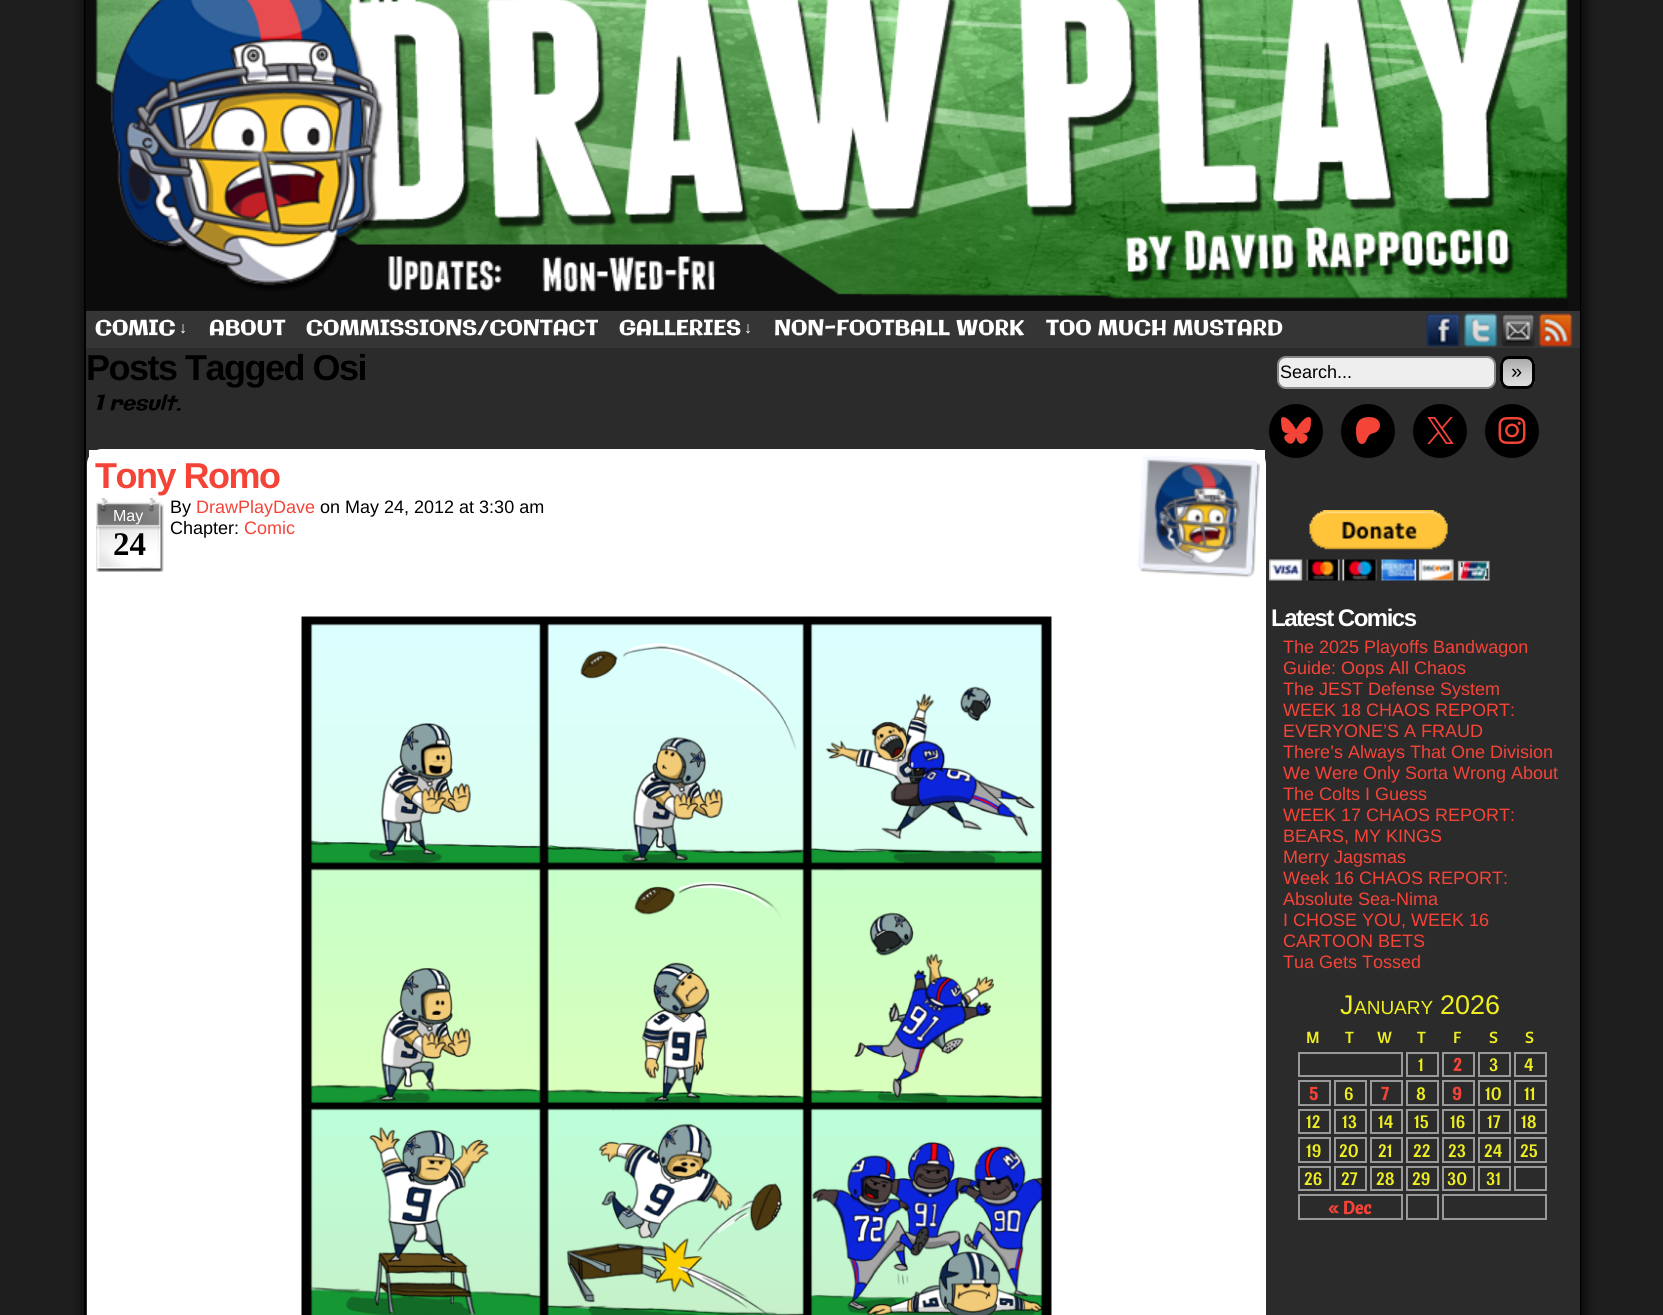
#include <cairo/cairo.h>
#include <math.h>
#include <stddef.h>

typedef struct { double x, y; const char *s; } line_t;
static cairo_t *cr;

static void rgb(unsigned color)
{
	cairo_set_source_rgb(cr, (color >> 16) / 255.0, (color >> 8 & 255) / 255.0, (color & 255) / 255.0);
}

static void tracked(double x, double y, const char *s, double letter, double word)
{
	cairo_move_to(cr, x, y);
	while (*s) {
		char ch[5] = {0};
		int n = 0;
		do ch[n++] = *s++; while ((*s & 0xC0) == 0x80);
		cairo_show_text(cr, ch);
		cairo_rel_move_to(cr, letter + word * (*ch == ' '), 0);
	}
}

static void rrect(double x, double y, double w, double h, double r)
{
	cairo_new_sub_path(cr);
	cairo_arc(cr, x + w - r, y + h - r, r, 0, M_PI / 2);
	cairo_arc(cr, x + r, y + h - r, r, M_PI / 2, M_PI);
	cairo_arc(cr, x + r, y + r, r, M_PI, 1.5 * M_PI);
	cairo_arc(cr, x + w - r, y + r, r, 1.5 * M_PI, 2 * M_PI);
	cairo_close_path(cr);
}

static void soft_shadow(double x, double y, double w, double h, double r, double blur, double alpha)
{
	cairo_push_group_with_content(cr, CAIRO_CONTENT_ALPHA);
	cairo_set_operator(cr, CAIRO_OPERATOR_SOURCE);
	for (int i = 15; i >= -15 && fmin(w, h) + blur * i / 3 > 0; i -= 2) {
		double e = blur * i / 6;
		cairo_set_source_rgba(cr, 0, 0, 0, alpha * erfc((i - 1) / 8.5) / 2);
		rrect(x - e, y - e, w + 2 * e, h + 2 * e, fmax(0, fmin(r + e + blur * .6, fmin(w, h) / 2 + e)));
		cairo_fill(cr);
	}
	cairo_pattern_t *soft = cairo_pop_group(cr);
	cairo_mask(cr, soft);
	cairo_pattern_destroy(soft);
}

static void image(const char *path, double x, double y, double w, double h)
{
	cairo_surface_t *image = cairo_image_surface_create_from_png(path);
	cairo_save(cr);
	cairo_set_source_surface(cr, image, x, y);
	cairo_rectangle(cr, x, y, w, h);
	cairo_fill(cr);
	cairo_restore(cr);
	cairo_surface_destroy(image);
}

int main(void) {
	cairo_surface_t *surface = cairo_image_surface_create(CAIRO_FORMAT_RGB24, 1663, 1315);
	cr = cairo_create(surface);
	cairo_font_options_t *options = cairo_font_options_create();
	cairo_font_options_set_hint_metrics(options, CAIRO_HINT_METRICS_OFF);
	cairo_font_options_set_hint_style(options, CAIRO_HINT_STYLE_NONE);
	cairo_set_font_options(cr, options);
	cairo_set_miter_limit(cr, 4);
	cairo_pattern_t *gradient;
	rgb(0x1e1e1e);
	cairo_paint(cr);
	rgb(0x000000);
	soft_shadow(86, -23, 1497, 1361, 0, 7.5, 1);
	cairo_rectangle(cr, 85, -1, 1495, 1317);
	rgb(0x000000);
	cairo_stroke(cr);
	rgb(0x0f0f0f);
	cairo_rectangle(cr, 88, 0, 1492, 311);
	cairo_fill(cr);
	image("img/1.png", 85, 0, 1483, 310);
	rgb(0x353535);
	cairo_rectangle(cr, 86, 311, 1494, 37);
	cairo_fill(cr);
	image("img/2.png", 1426, 313, 34, 34);
	image("img/3.png", 1463, 313, 35, 34);
	image("img/4.png", 1501, 313, 34, 34);
	image("img/5.png", 1538, 313, 35, 34);
	rgb(0x2b2b2b);
	cairo_rectangle(cr, 86, 348, 1494, 967);
	cairo_fill(cr);
	rgb(0xffffff);
	rrect(87, 449, 1179, 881, 15);
	cairo_fill(cr);
	cairo_rectangle(cr, 89, 450, 1176, 9);
	cairo_fill(cr);
	image("img/6.png", 96, 498, 68, 74);
	image("img/7.png", 1137, 454, 123, 124);
	image("img/8.png", 301, 616, 751, 699);
	rgb(0xeeeeee);
	rrect(1278, 357, 217, 31, 8);
	cairo_fill_preserve(cr);
	rgb(0x888888);
	cairo_stroke(cr);
	cairo_save(cr);
	rrect(1500, 356, 35, 33, 9);
	cairo_clip(cr);
	gradient = cairo_pattern_create_linear(1517, 359, 1517, 386);
	cairo_pattern_add_color_stop_rgba(gradient, 0, 0.667, 0.667, 0.667, 1);
	cairo_pattern_add_color_stop_rgba(gradient, 0.5, 0.8, 0.8, 0.8, 1);
	cairo_pattern_add_color_stop_rgba(gradient, 1, 0.867, 0.867, 0.867, 1);
	cairo_set_source(cr, gradient);
	cairo_pattern_destroy(gradient);
	cairo_rectangle(cr, 1500, 359, 35, 27);
	cairo_fill(cr);
	cairo_restore(cr);
	rrect(1501.5, 357.5, 32, 30, 7.5);
	rgb(0x000000);
	cairo_set_line_width(cr, 3);
	cairo_stroke(cr);
	cairo_arc(cr, 1296, 431, 27, 0, 2 * M_PI);
	cairo_fill(cr);
	image("img/9.png", 1281, 417, 30, 27);
	cairo_arc(cr, 1368, 431, 27, 0, 2 * M_PI);
	cairo_fill(cr);
	image("img/10.png", 1356, 417, 24, 27);
	cairo_arc(cr, 1440, 431, 27, 0, 2 * M_PI);
	cairo_fill(cr);
	image("img/11.png", 1427, 417, 27, 27);
	cairo_arc(cr, 1512, 431, 27, 0, 2 * M_PI);
	cairo_fill(cr);
	image("img/12.png", 1498, 417, 28, 27);
	image("img/13.png", 1269, 510, 221, 71);
	cairo_rectangle(cr, 1299, 1053, 103, 23);
	rgb(0x999999);
	cairo_set_line_width(cr, 2);
	cairo_stroke(cr);
	cairo_rectangle(cr, 1407, 1053, 31, 23);
	cairo_stroke(cr);
	cairo_rectangle(cr, 1443, 1053, 31, 23);
	cairo_stroke(cr);
	cairo_rectangle(cr, 1479, 1053, 31, 23);
	cairo_stroke(cr);
	cairo_rectangle(cr, 1515, 1053, 31, 23);
	cairo_stroke(cr);
	cairo_rectangle(cr, 1299, 1081, 31, 24);
	cairo_stroke(cr);
	cairo_rectangle(cr, 1335, 1081, 31, 24);
	cairo_stroke(cr);
	cairo_rectangle(cr, 1371, 1081, 31, 24);
	cairo_stroke(cr);
	cairo_rectangle(cr, 1407, 1081, 31, 24);
	cairo_stroke(cr);
	cairo_rectangle(cr, 1443, 1081, 31, 24);
	cairo_stroke(cr);
	cairo_rectangle(cr, 1479, 1081, 31, 24);
	cairo_stroke(cr);
	cairo_rectangle(cr, 1515, 1081, 31, 24);
	cairo_stroke(cr);
	cairo_rectangle(cr, 1299, 1110, 31, 23);
	cairo_stroke(cr);
	cairo_rectangle(cr, 1335, 1110, 31, 23);
	cairo_stroke(cr);
	cairo_rectangle(cr, 1371, 1110, 31, 23);
	cairo_stroke(cr);
	cairo_rectangle(cr, 1407, 1110, 31, 23);
	cairo_stroke(cr);
	cairo_rectangle(cr, 1443, 1110, 31, 23);
	cairo_stroke(cr);
	cairo_rectangle(cr, 1479, 1110, 31, 23);
	cairo_stroke(cr);
	cairo_rectangle(cr, 1515, 1110, 31, 23);
	cairo_stroke(cr);
	cairo_rectangle(cr, 1299, 1138, 31, 24);
	cairo_stroke(cr);
	cairo_rectangle(cr, 1335, 1138, 31, 24);
	cairo_stroke(cr);
	cairo_rectangle(cr, 1371, 1138, 31, 24);
	cairo_stroke(cr);
	cairo_rectangle(cr, 1407, 1138, 31, 24);
	cairo_stroke(cr);
	cairo_rectangle(cr, 1443, 1138, 31, 24);
	cairo_stroke(cr);
	cairo_rectangle(cr, 1479, 1138, 31, 24);
	cairo_stroke(cr);
	cairo_rectangle(cr, 1515, 1138, 31, 24);
	cairo_stroke(cr);
	cairo_rectangle(cr, 1299, 1167, 31, 23);
	cairo_stroke(cr);
	cairo_rectangle(cr, 1335, 1167, 31, 23);
	cairo_stroke(cr);
	cairo_rectangle(cr, 1371, 1167, 31, 23);
	cairo_stroke(cr);
	cairo_rectangle(cr, 1407, 1167, 31, 23);
	cairo_stroke(cr);
	cairo_rectangle(cr, 1443, 1167, 31, 23);
	cairo_stroke(cr);
	cairo_rectangle(cr, 1479, 1167, 31, 23);
	cairo_stroke(cr);
	cairo_rectangle(cr, 1515, 1167, 31, 23);
	cairo_stroke(cr);
	cairo_rectangle(cr, 1299, 1195, 103, 24);
	cairo_stroke(cr);
	cairo_rectangle(cr, 1407, 1195, 31, 24);
	cairo_stroke(cr);
	cairo_rectangle(cr, 1443, 1195, 103, 24);
	cairo_stroke(cr);
	cairo_select_font_face(cr, "Galindo", CAIRO_FONT_SLANT_NORMAL, CAIRO_FONT_WEIGHT_NORMAL);
	cairo_set_font_size(cr, 21);
	rgb(0xffffff);
	cairo_move_to(cr, 95, 335);
	cairo_show_text(cr, "COMIC");
	cairo_select_font_face(cr, "Liberation Serif", CAIRO_FONT_SLANT_NORMAL, CAIRO_FONT_WEIGHT_NORMAL);
	cairo_set_font_size(cr, 16);
	cairo_move_to(cr, 179, 333);
	cairo_show_text(cr, "↓");
	cairo_select_font_face(cr, "Galindo", CAIRO_FONT_SLANT_NORMAL, CAIRO_FONT_WEIGHT_NORMAL);
	cairo_set_font_size(cr, 21);
	{
		static const line_t items[] = {
			{209, 335, "ABOUT"},
			{306, 335, "COMMISSIONS/CONTACT"},
			{619, 335, "GALLERIES"},
		};
		for (size_t i = 0; i < sizeof items / sizeof *items; i++) {
			cairo_move_to(cr, items[i].x, items[i].y);
			cairo_show_text(cr, items[i].s);
		}
	}
	cairo_select_font_face(cr, "Liberation Serif", CAIRO_FONT_SLANT_NORMAL, CAIRO_FONT_WEIGHT_NORMAL);
	cairo_set_font_size(cr, 16);
	cairo_move_to(cr, 744, 333);
	cairo_show_text(cr, "↓");
	cairo_select_font_face(cr, "Galindo", CAIRO_FONT_SLANT_NORMAL, CAIRO_FONT_WEIGHT_NORMAL);
	cairo_set_font_size(cr, 21);
	cairo_move_to(cr, 774, 335);
	cairo_show_text(cr, "NON-FOOTBALL WORK");
	cairo_move_to(cr, 1046, 335);
	cairo_show_text(cr, "TOO MUCH MUSTARD");
	cairo_select_font_face(cr, "Liberation Sans", CAIRO_FONT_SLANT_NORMAL, CAIRO_FONT_WEIGHT_BOLD);
	cairo_set_font_size(cr, 36);
	rgb(0x000000);
	tracked(86, 380, "Posts Tagged Osi", -1.5, 0);
	cairo_select_font_face(cr, "Galindo", CAIRO_FONT_SLANT_ITALIC, CAIRO_FONT_WEIGHT_NORMAL);
	cairo_set_font_size(cr, 21);
	cairo_move_to(cr, 94, 410);
	cairo_show_text(cr, "1 result.");
	cairo_select_font_face(cr, "Liberation Sans", CAIRO_FONT_SLANT_NORMAL, CAIRO_FONT_WEIGHT_BOLD);
	cairo_set_font_size(cr, 36);
	rgb(0xf44438);
	tracked(95, 488, "Tony Romo", -1.5, 0);
	cairo_select_font_face(cr, "Liberation Sans", CAIRO_FONT_SLANT_NORMAL, CAIRO_FONT_WEIGHT_NORMAL);
	cairo_set_font_size(cr, 16);
	rgb(0xffffff);
	cairo_move_to(cr, 113, 521);
	cairo_show_text(cr, "May");
	cairo_select_font_face(cr, "Liberation Serif", CAIRO_FONT_SLANT_NORMAL, CAIRO_FONT_WEIGHT_BOLD);
	cairo_set_font_size(cr, 33);
	rgb(0x000000);
	cairo_move_to(cr, 113, 555);
	cairo_show_text(cr, "24");
	cairo_select_font_face(cr, "Liberation Sans", CAIRO_FONT_SLANT_NORMAL, CAIRO_FONT_WEIGHT_NORMAL);
	cairo_set_font_size(cr, 18);
	cairo_move_to(cr, 170, 513);
	cairo_show_text(cr, "By");
	rgb(0xf44438);
	cairo_move_to(cr, 196, 513);
	cairo_show_text(cr, "DrawPlayDave");
	rgb(0x000000);
	cairo_move_to(cr, 320, 513);
	cairo_show_text(cr, "on May 24, 2012 at 3:30 am");
	cairo_move_to(cr, 170, 534);
	cairo_show_text(cr, "Chapter:");
	rgb(0xf44438);
	cairo_move_to(cr, 244, 534);
	cairo_show_text(cr, "Comic");
	rgb(0x000000);
	cairo_move_to(cr, 1280, 378);
	cairo_show_text(cr, "Search...");
	cairo_set_font_size(cr, 20);
	cairo_move_to(cr, 1511, 378);
	cairo_show_text(cr, "»");
	cairo_select_font_face(cr, "Liberation Sans", CAIRO_FONT_SLANT_NORMAL, CAIRO_FONT_WEIGHT_BOLD);
	cairo_set_font_size(cr, 24);
	rgb(0xffffff);
	tracked(1271, 626, "Latest Comics", -1.5, 0);
	cairo_select_font_face(cr, "Liberation Sans", CAIRO_FONT_SLANT_NORMAL, CAIRO_FONT_WEIGHT_NORMAL);
	cairo_set_font_size(cr, 18);
	rgb(0xf44438);
	{
		static const line_t items[] = {
			{1283, 653, "The 2025 Playoffs Bandwagon"},
			{1283, 674, "Guide: Oops All Chaos"},
			{1283, 695, "The JEST Defense System"},
			{1283, 716, "WEEK 18 CHAOS REPORT:"},
			{1283, 737, "EVERYONE’S A FRAUD"},
			{1283, 758, "There’s Always That One Division"},
			{1283, 779, "We Were Only Sorta Wrong About"},
			{1283, 800, "The Colts I Guess"},
			{1283, 821, "WEEK 17 CHAOS REPORT:"},
			{1283, 842, "BEARS, MY KINGS"},
			{1283, 863, "Merry Jagsmas"},
			{1283, 884, "Week 16 CHAOS REPORT:"},
			{1283, 905, "Absolute Sea-Nima"},
			{1283, 926, "I CHOSE YOU, WEEK 16"},
			{1283, 947, "CARTOON BETS"},
			{1283, 968, "Tua Gets Tossed"},
		};
		for (size_t i = 0; i < sizeof items / sizeof *items; i++) {
			cairo_move_to(cr, items[i].x, items[i].y);
			cairo_show_text(cr, items[i].s);
		}
	}
	cairo_set_font_size(cr, 27);
	rgb(0xeeee22);
	cairo_move_to(cr, 1340, 1014);
	cairo_show_text(cr, "J");
	cairo_set_font_size(cr, 19);
	cairo_move_to(cr, 1354, 1014);
	cairo_show_text(cr, "ANUARY");
	cairo_set_font_size(cr, 27);
	cairo_move_to(cr, 1440, 1014);
	cairo_show_text(cr, "2026");
	cairo_select_font_face(cr, "Cantora One", CAIRO_FONT_SLANT_NORMAL, CAIRO_FONT_WEIGHT_NORMAL);
	cairo_set_font_size(cr, 16);
	{
		static const line_t items[] = {
			{1306, 1043, "M"},
			{1345, 1043, "T"},
			{1377, 1043, "W"},
			{1417, 1043, "T"},
			{1453, 1043, "F"},
			{1489, 1043, "S"},
			{1525, 1043, "S"},
		};
		for (size_t i = 0; i < sizeof items / sizeof *items; i++) {
			cairo_move_to(cr, items[i].x, items[i].y);
			cairo_show_text(cr, items[i].s);
		}
	}
	cairo_set_font_size(cr, 18);
	cairo_move_to(cr, 1418, 1071);
	cairo_show_text(cr, "1");
	cairo_select_font_face(cr, "Cantora One", CAIRO_FONT_SLANT_NORMAL, CAIRO_FONT_WEIGHT_BOLD);
	rgb(0xf44438);
	cairo_move_to(cr, 1453, 1071);
	cairo_show_text(cr, "2");
	cairo_select_font_face(cr, "Cantora One", CAIRO_FONT_SLANT_NORMAL, CAIRO_FONT_WEIGHT_NORMAL);
	rgb(0xeeee22);
	cairo_move_to(cr, 1489, 1071);
	cairo_show_text(cr, "3");
	cairo_move_to(cr, 1524, 1071);
	cairo_show_text(cr, "4");
	cairo_select_font_face(cr, "Cantora One", CAIRO_FONT_SLANT_NORMAL, CAIRO_FONT_WEIGHT_BOLD);
	rgb(0xf44438);
	cairo_move_to(cr, 1309, 1100);
	cairo_show_text(cr, "5");
	cairo_select_font_face(cr, "Cantora One", CAIRO_FONT_SLANT_NORMAL, CAIRO_FONT_WEIGHT_NORMAL);
	rgb(0xeeee22);
	cairo_move_to(cr, 1344, 1100);
	cairo_show_text(cr, "6");
	cairo_select_font_face(cr, "Cantora One", CAIRO_FONT_SLANT_NORMAL, CAIRO_FONT_WEIGHT_BOLD);
	rgb(0xf44438);
	cairo_move_to(cr, 1381, 1100);
	cairo_show_text(cr, "7");
	cairo_select_font_face(cr, "Cantora One", CAIRO_FONT_SLANT_NORMAL, CAIRO_FONT_WEIGHT_NORMAL);
	rgb(0xeeee22);
	cairo_move_to(cr, 1416, 1100);
	cairo_show_text(cr, "8");
	cairo_select_font_face(cr, "Cantora One", CAIRO_FONT_SLANT_NORMAL, CAIRO_FONT_WEIGHT_BOLD);
	rgb(0xf44438);
	cairo_move_to(cr, 1452, 1100);
	cairo_show_text(cr, "9");
	cairo_select_font_face(cr, "Cantora One", CAIRO_FONT_SLANT_NORMAL, CAIRO_FONT_WEIGHT_NORMAL);
	rgb(0xeeee22);
	{
		static const line_t items[] = {
			{1485, 1100, "10"},
			{1524, 1100, "11"},
			{1306, 1128, "12"},
			{1342, 1128, "13"},
			{1378, 1128, "14"},
			{1414, 1128, "15"},
			{1450, 1128, "16"},
			{1487, 1128, "17"},
			{1521, 1128, "18"},
			{1306, 1157, "19"},
			{1339, 1157, "20"},
			{1378, 1157, "21"},
			{1413, 1157, "22"},
			{1448, 1157, "23"},
			{1484, 1157, "24"},
			{1520, 1157, "25"},
			{1304, 1185, "26"},
			{1341, 1185, "27"},
			{1376, 1185, "28"},
			{1412, 1185, "29"},
			{1447, 1185, "30"},
			{1486, 1185, "31"},
		};
		for (size_t i = 0; i < sizeof items / sizeof *items; i++) {
			cairo_move_to(cr, items[i].x, items[i].y);
			cairo_show_text(cr, items[i].s);
		}
	}
	cairo_select_font_face(cr, "Cantora One", CAIRO_FONT_SLANT_NORMAL, CAIRO_FONT_WEIGHT_BOLD);
	rgb(0xf44438);
	cairo_move_to(cr, 1328, 1214);
	cairo_show_text(cr, "« Dec");
	cairo_surface_write_to_png(surface, "page.png");
	cairo_font_options_destroy(options);
	cairo_destroy(cr);
	cairo_surface_destroy(surface);
	return 0;
}
